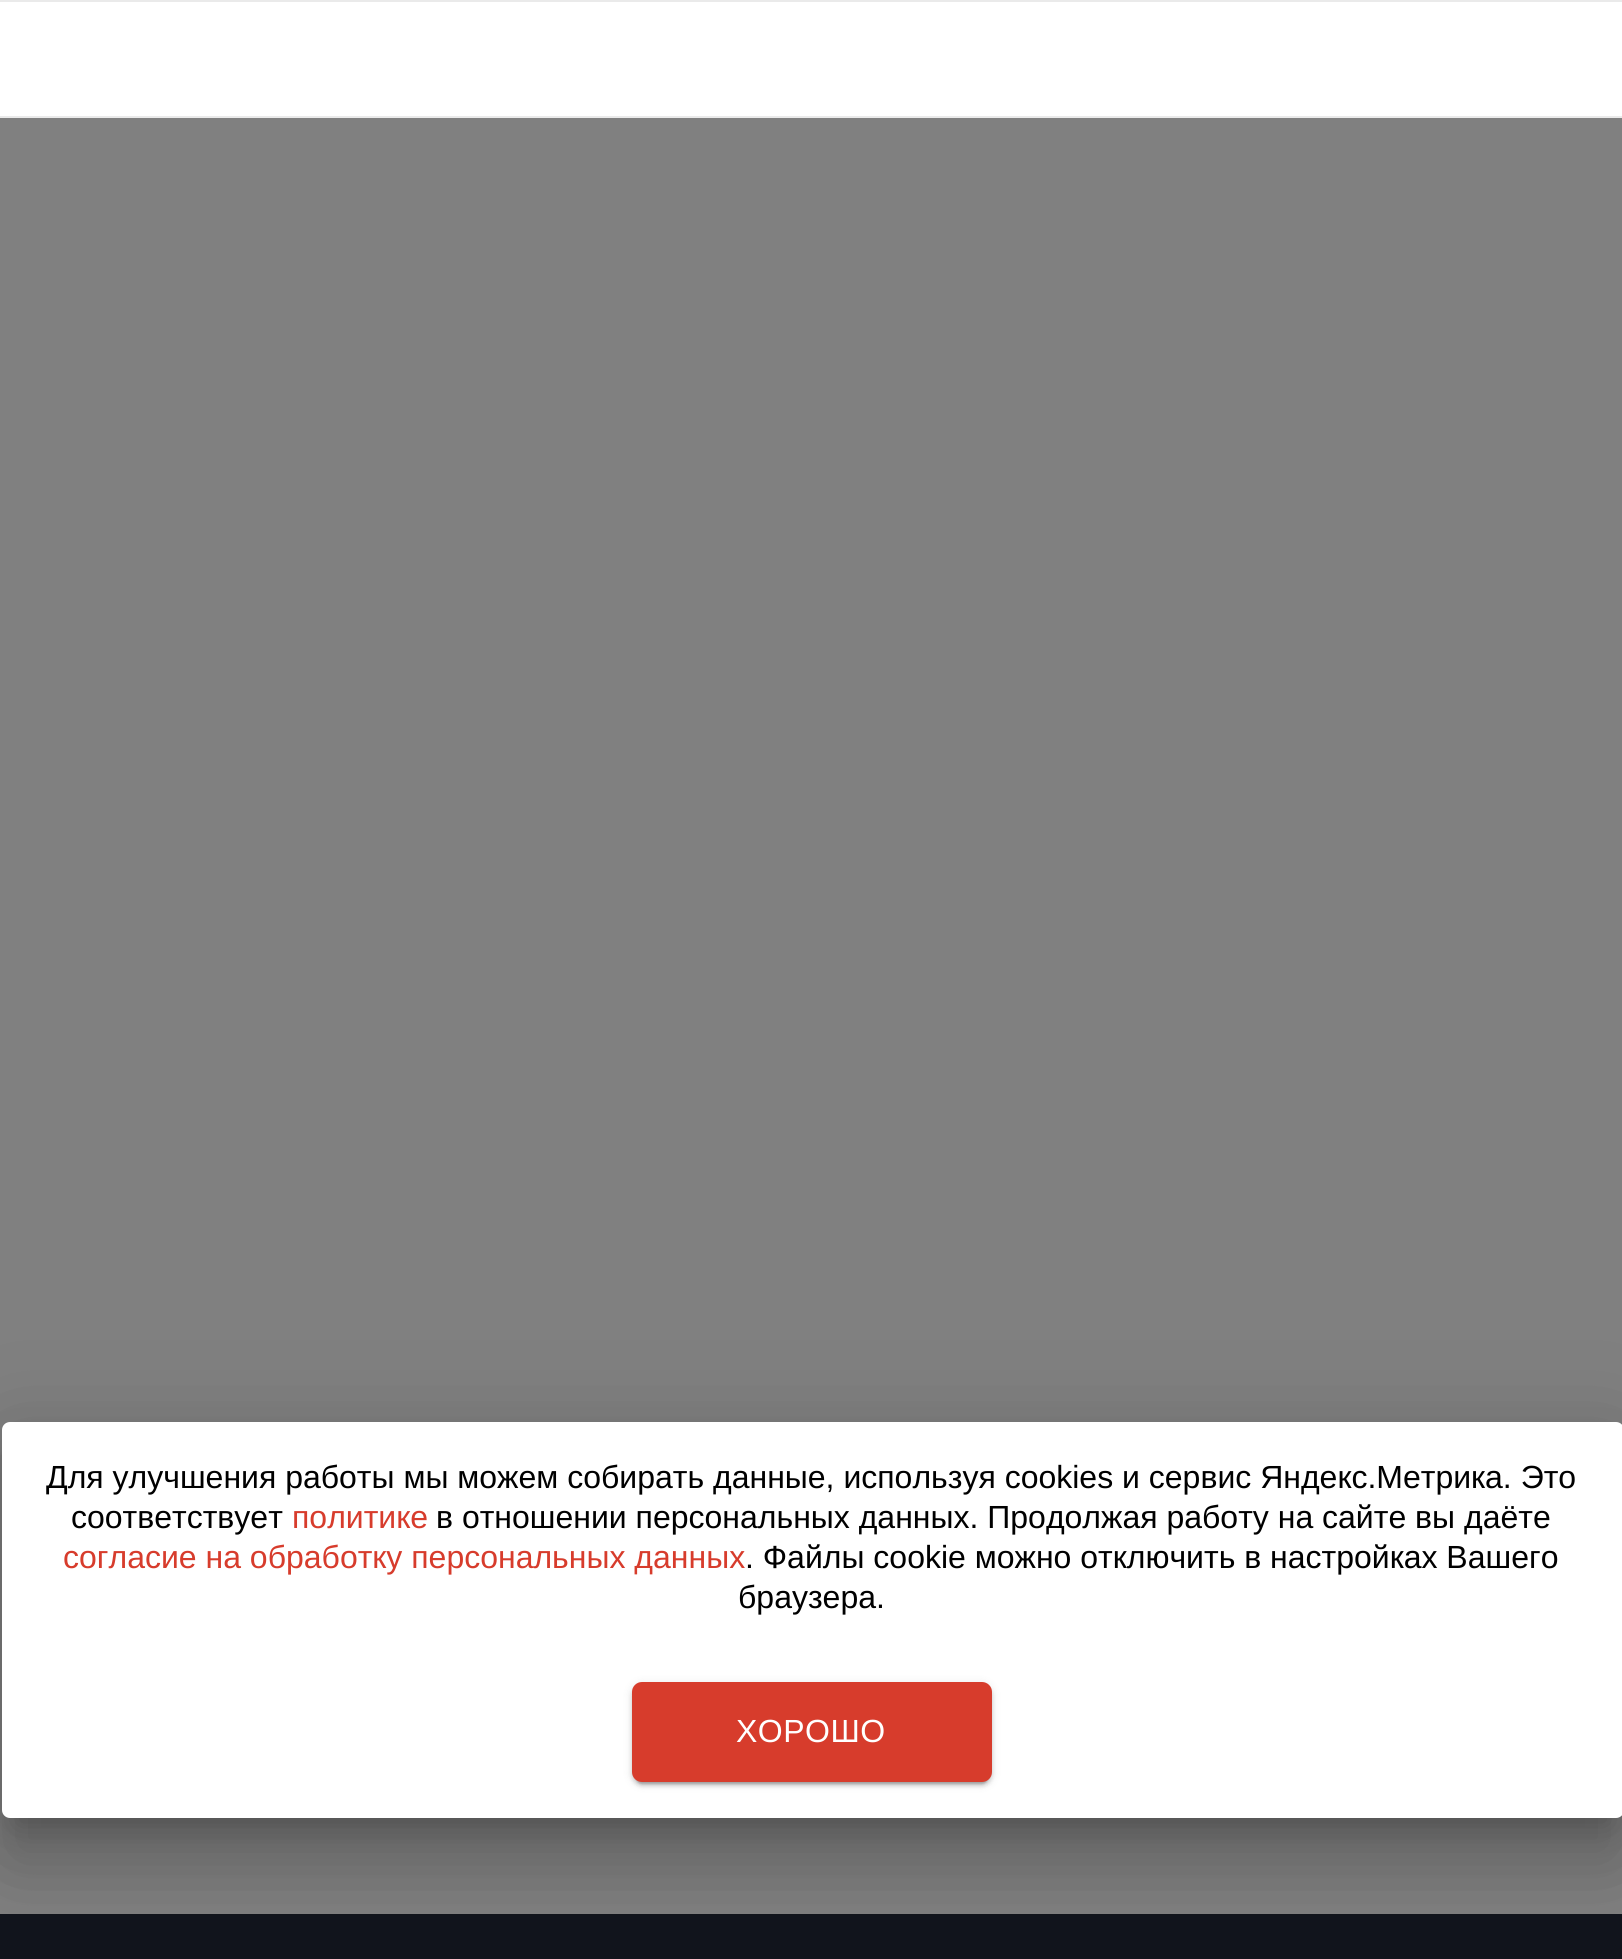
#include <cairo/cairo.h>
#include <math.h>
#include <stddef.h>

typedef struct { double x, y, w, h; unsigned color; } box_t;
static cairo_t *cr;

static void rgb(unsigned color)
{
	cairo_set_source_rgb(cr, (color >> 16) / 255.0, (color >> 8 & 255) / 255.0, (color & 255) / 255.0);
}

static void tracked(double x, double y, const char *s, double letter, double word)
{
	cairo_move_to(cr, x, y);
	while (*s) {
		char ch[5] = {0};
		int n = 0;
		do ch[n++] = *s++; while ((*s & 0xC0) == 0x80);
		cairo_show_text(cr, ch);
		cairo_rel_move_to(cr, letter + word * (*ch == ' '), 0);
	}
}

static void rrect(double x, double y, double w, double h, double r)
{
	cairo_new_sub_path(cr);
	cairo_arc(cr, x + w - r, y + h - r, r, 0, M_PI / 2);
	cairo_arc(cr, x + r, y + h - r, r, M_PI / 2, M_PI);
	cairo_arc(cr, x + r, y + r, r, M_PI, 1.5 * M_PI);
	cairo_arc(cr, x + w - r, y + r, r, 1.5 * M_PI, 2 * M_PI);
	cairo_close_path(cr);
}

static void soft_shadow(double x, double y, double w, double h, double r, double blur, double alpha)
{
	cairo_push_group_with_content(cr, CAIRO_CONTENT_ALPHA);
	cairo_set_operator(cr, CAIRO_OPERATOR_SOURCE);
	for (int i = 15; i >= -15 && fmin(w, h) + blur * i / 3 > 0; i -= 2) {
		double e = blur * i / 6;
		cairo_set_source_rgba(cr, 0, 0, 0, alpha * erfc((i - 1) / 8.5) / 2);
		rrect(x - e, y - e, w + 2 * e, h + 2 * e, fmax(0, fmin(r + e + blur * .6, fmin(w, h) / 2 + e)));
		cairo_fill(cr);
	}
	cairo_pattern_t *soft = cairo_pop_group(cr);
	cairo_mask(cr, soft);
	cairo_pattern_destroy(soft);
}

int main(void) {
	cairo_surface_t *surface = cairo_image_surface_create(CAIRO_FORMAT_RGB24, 1622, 1959);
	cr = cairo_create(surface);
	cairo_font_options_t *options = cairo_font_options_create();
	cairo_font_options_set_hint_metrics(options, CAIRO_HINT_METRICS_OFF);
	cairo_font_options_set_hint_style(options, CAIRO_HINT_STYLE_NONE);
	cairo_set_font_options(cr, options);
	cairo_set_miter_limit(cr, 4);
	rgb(0x808080);
	cairo_paint(cr);
	{
		static const box_t items[] = {
			{0, 2, 1622, 114, 0xffffff},
			{0, 0, 1622, 2, 0xeaeaea},
			{0, 116, 1622, 2, 0xeaeaea},
			{0, 1914, 1622, 45, 0x11141c},
		};
		for (size_t i = 0; i < sizeof items / sizeof *items; i++) {
			rgb(items[i].color);
			cairo_rectangle(cr, items[i].x, items[i].y, items[i].w, items[i].h);
			cairo_fill(cr);
		}
	}
	rgb(0x000000);
	soft_shadow(-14, 1424, 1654, 428, 24, 46, 0.12);
	soft_shadow(-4, 1464, 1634, 408, 14, 38, 0.14);
	soft_shadow(16, 1458, 1594, 368, 0, 15, 0.2);
	rgb(0xffffff);
	rrect(2, 1422, 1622, 396, 8);
	cairo_fill(cr);
	rgb(0x000000);
	soft_shadow(632, 1684, 360, 100, 10, 5, 0.12);
	soft_shadow(632, 1686, 360, 100, 10, 2, 0.14);
	soft_shadow(636, 1692, 352, 92, 6, 1, 0.2);
	rgb(0xd73c2c);
	rrect(632, 1682, 360, 100, 10);
	cairo_fill(cr);
	cairo_select_font_face(cr, "Liberation Sans", CAIRO_FONT_SLANT_NORMAL, CAIRO_FONT_WEIGHT_NORMAL);
	cairo_set_font_size(cr, 32);
	rgb(0x000000);
	cairo_move_to(cr, 46, 1488);
	cairo_show_text(cr, "Для улучшения работы мы можем собирать данные, используя cookies и сервис Яндекс.Метрика. Это");
	cairo_move_to(cr, 71, 1528);
	cairo_show_text(cr, "соответствует");
	rgb(0xd73c2c);
	cairo_move_to(cr, 292, 1528);
	cairo_show_text(cr, "политике");
	rgb(0x000000);
	cairo_move_to(cr, 436, 1528);
	cairo_show_text(cr, "в отношении персональных данных. Продолжая работу на сайте вы даёте");
	rgb(0xd73c2c);
	cairo_move_to(cr, 63, 1568);
	cairo_show_text(cr, "согласие на обработку персональных данных");
	rgb(0x000000);
	cairo_move_to(cr, 745, 1568);
	cairo_show_text(cr, ". Файлы cookie можно отключить в настройках Вашего");
	cairo_move_to(cr, 738, 1608);
	cairo_show_text(cr, "браузера.");
	rgb(0xffffff);
	tracked(736, 1742, "ХОРОШО", 0.5, 0);
	cairo_surface_write_to_png(surface, "page.png");
	cairo_font_options_destroy(options);
	cairo_destroy(cr);
	cairo_surface_destroy(surface);
	return 0;
}
